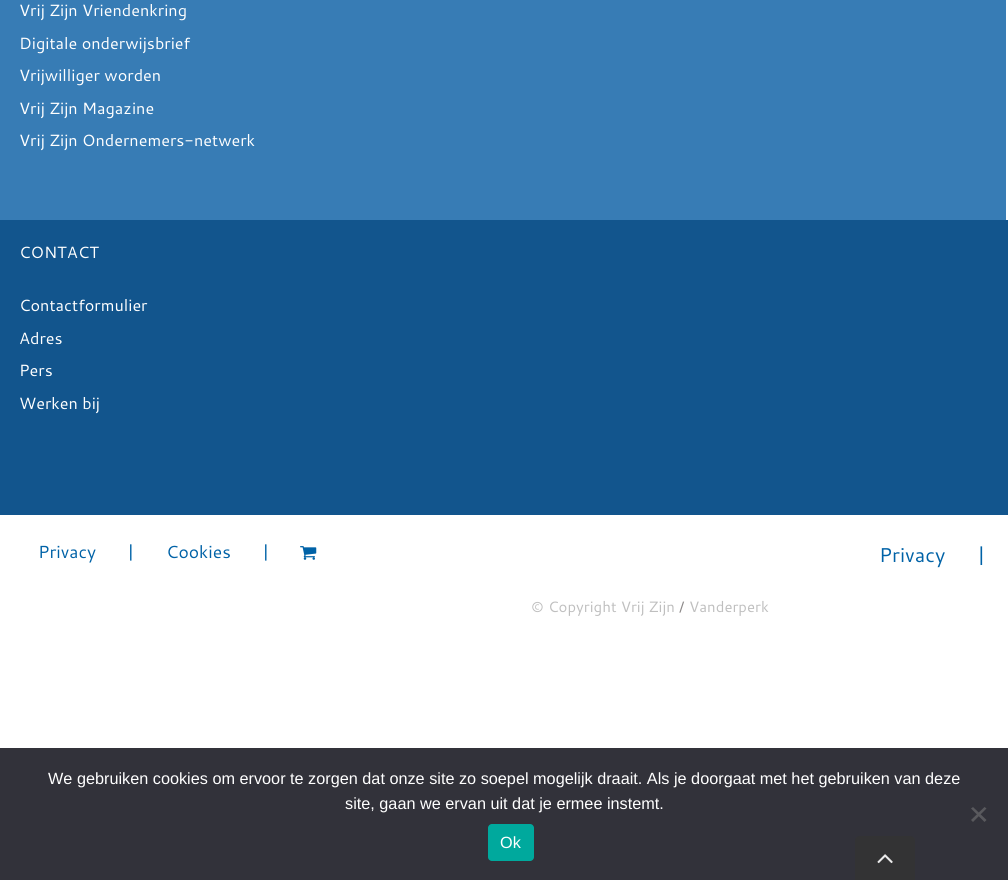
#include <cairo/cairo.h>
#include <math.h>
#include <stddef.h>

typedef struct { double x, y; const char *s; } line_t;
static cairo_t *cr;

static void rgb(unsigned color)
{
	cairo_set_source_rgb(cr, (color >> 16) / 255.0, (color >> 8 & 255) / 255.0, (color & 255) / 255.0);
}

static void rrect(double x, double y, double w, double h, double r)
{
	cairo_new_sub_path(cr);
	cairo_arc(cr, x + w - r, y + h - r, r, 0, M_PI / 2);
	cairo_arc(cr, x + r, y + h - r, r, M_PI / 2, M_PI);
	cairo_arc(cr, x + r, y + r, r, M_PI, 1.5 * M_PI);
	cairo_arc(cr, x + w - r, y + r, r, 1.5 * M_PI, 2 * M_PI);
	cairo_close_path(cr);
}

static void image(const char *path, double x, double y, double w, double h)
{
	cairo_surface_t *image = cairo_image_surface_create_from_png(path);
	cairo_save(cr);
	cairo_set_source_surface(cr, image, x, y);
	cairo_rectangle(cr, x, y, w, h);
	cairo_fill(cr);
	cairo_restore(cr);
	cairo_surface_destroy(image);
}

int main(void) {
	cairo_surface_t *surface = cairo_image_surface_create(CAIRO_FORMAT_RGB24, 1008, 880);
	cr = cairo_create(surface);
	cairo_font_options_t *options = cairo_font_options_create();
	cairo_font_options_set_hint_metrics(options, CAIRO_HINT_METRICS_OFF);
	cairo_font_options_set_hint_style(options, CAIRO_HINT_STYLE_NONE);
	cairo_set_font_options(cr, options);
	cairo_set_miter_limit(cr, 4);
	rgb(0xffffff);
	cairo_paint(cr);
	rgb(0x377cb5);
	cairo_rectangle(cr, 0, 0, 1006, 220);
	cairo_fill(cr);
	rgb(0x12558d);
	cairo_rectangle(cr, 0, 220, 1008, 295);
	cairo_fill(cr);
	image("img/1.png", 300, 546, 17, 14);
	rgb(0x32323a);
	cairo_rectangle(cr, 0, 748, 1008, 132);
	cairo_fill(cr);
	rgb(0x59595d);
	cairo_new_path(cr);
	cairo_move_to(cr, 984.5, 807);
	cairo_line_to(cr, 986.5, 808.5);
	cairo_line_to(cr, 973, 822);
	cairo_line_to(cr, 971, 820);
	cairo_close_path(cr);
	cairo_fill(cr);
	cairo_new_path(cr);
	cairo_move_to(cr, 971, 808.5);
	cairo_line_to(cr, 973, 807);
	cairo_line_to(cr, 986.5, 820);
	cairo_line_to(cr, 984.5, 822);
	cairo_close_path(cr);
	cairo_fill(cr);
	rgb(0x00a99d);
	rrect(488, 824, 46, 37, 4);
	cairo_fill(cr);
	rgb(0x333334);
	cairo_new_path(cr);
	cairo_move_to(cr, 860, 836);
	cairo_line_to(cr, 910, 836);
	cairo_curve_to(cr, 913, 836, 915, 838, 915, 841);
	cairo_line_to(cr, 915, 880);
	cairo_line_to(cr, 855, 880);
	cairo_line_to(cr, 855, 841);
	cairo_curve_to(cr, 855, 838, 857, 836, 860, 836);
	cairo_close_path(cr);
	cairo_fill(cr);
	image("img/2.png", 877, 854, 16, 10);
	cairo_select_font_face(cr, "Cantarell", CAIRO_FONT_SLANT_NORMAL, CAIRO_FONT_WEIGHT_NORMAL);
	cairo_set_font_size(cr, 16.25);
	rgb(0xffffff);
	{
		static const line_t items[] = {
			{19, 16, "Vrij Zijn Vriendenkring"},
			{19, 49, "Digitale onderwijsbrief"},
			{19, 81, "Vrijwilliger worden"},
			{19, 114, "Vrij Zijn Magazine"},
			{19, 146, "Vrij Zijn Ondernemers-netwerk"},
			{19, 258, "CONTACT"},
			{19, 311, "Contactformulier"},
			{19, 344, "Adres"},
			{19, 376, "Pers"},
			{19, 409, "Werken bij"},
		};
		for (size_t i = 0; i < sizeof items / sizeof *items; i++) {
			cairo_move_to(cr, items[i].x, items[i].y);
			cairo_show_text(cr, items[i].s);
		}
	}
	cairo_set_font_size(cr, 17.5);
	rgb(0x0062a7);
	{
		static const line_t items[] = {
			{38, 558, "Privacy"},
			{127, 558, "|"},
			{166, 558, "Cookies"},
			{262, 558, "|"},
		};
		for (size_t i = 0; i < sizeof items / sizeof *items; i++) {
			cairo_move_to(cr, items[i].x, items[i].y);
			cairo_show_text(cr, items[i].s);
		}
	}
	cairo_set_font_size(cr, 20);
	cairo_move_to(cr, 879, 562);
	cairo_show_text(cr, "Privacy");
	cairo_move_to(cr, 977, 562);
	cairo_show_text(cr, "|");
	cairo_set_font_size(cr, 15);
	rgb(0xbfbfbf);
	cairo_move_to(cr, 531, 612);
	cairo_show_text(cr, "© Copyright Vrij Zijn");
	rgb(0x8c8989);
	cairo_move_to(cr, 679, 612);
	cairo_show_text(cr, "/");
	rgb(0xbfbfbf);
	cairo_move_to(cr, 689, 612);
	cairo_show_text(cr, "Vanderperk");
	cairo_select_font_face(cr, "Liberation Sans", CAIRO_FONT_SLANT_NORMAL, CAIRO_FONT_WEIGHT_NORMAL);
	cairo_set_font_size(cr, 16.25);
	rgb(0xffffff);
	{
		static const line_t items[] = {
			{48, 784, "We gebruiken cookies om ervoor te zorgen dat onze site zo soepel mogelijk draait. Als je doorgaat met het gebruiken van deze"},
			{345, 809, "site, gaan we ervan uit dat je ermee instemt."},
			{500, 848, "Ok"},
		};
		for (size_t i = 0; i < sizeof items / sizeof *items; i++) {
			cairo_move_to(cr, items[i].x, items[i].y);
			cairo_show_text(cr, items[i].s);
		}
	}
	cairo_surface_write_to_png(surface, "page.png");
	cairo_font_options_destroy(options);
	cairo_destroy(cr);
	cairo_surface_destroy(surface);
	return 0;
}
